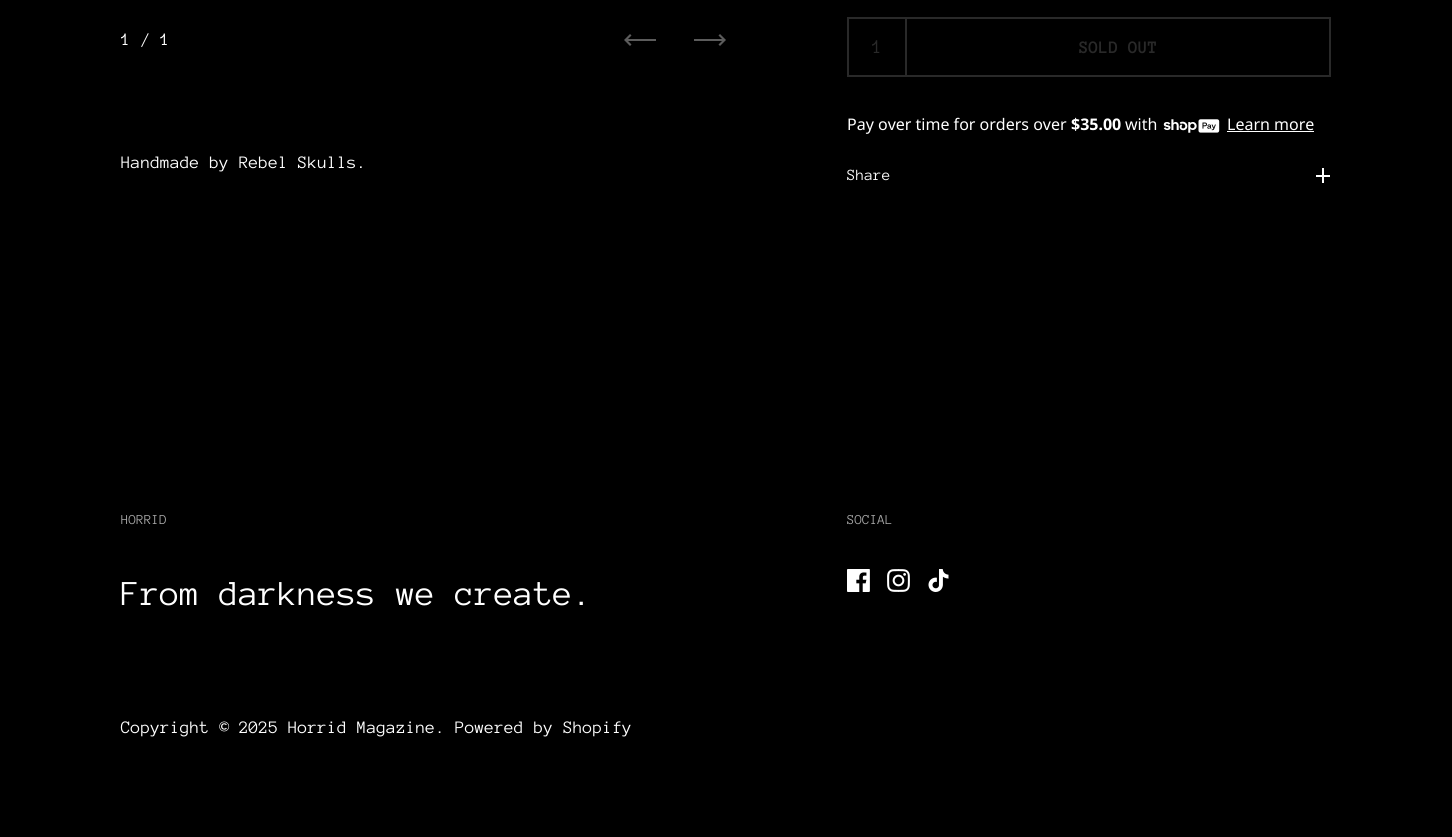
#include <cairo/cairo.h>
#include <math.h>
#include <stddef.h>

typedef struct { double x, y, w, h; unsigned color; } box_t;
static cairo_t *cr;

static void rgb(unsigned color)
{
	cairo_set_source_rgb(cr, (color >> 16) / 255.0, (color >> 8 & 255) / 255.0, (color & 255) / 255.0);
}

static void image(const char *path, double x, double y, double w, double h)
{
	cairo_surface_t *image = cairo_image_surface_create_from_png(path);
	cairo_save(cr);
	cairo_set_source_surface(cr, image, x, y);
	cairo_rectangle(cr, x, y, w, h);
	cairo_fill(cr);
	cairo_restore(cr);
	cairo_surface_destroy(image);
}

int main(void) {
	cairo_surface_t *surface = cairo_image_surface_create(CAIRO_FORMAT_RGB24, 1452, 837);
	cr = cairo_create(surface);
	cairo_font_options_t *options = cairo_font_options_create();
	cairo_font_options_set_hint_metrics(options, CAIRO_HINT_METRICS_OFF);
	cairo_font_options_set_hint_style(options, CAIRO_HINT_STYLE_NONE);
	cairo_set_font_options(cr, options);
	cairo_set_miter_limit(cr, 4);
	rgb(0x000000);
	cairo_paint(cr);
	rgb(0x5c5c5c);
	cairo_rectangle(cr, 626, 39, 30, 2);
	cairo_fill(cr);
	cairo_new_path(cr);
	cairo_move_to(cr, 624, 40);
	cairo_line_to(cr, 630, 46);
	cairo_line_to(cr, 631.5, 44.5);
	cairo_line_to(cr, 627, 40);
	cairo_line_to(cr, 631.5, 35.5);
	cairo_line_to(cr, 630, 34);
	cairo_line_to(cr, 625.5, 38.5);
	cairo_close_path(cr);
	cairo_fill(cr);
	cairo_rectangle(cr, 694, 39, 30, 2);
	cairo_fill(cr);
	cairo_new_path(cr);
	cairo_move_to(cr, 726, 40);
	cairo_line_to(cr, 720, 34);
	cairo_line_to(cr, 718.5, 35.5);
	cairo_line_to(cr, 723, 40);
	cairo_line_to(cr, 718.5, 44.5);
	cairo_line_to(cr, 720, 46);
	cairo_line_to(cr, 724.5, 41.5);
	cairo_close_path(cr);
	cairo_fill(cr);
	cairo_rectangle(cr, 848, 18, 58, 58);
	rgb(0x292929);
	cairo_stroke(cr);
	cairo_rectangle(cr, 906, 18, 424, 58);
	cairo_stroke(cr);
	image("img/1.png", 1163, 119, 57, 14);
	{
		static const box_t items[] = {
			{1227, 131, 87, 1, 0xffffff},
			{1316, 175, 14, 2, 0xffffff},
			{1322, 168, 2, 15, 0xffffff},
		};
		for (size_t i = 0; i < sizeof items / sizeof *items; i++) {
			rgb(items[i].color);
			cairo_rectangle(cr, items[i].x, items[i].y, items[i].w, items[i].h);
			cairo_fill(cr);
		}
	}
	image("img/2.png", 847, 569, 23, 23);
	image("img/3.png", 887, 569, 23, 23);
	image("img/4.png", 928, 569, 21, 23);
	cairo_select_font_face(cr, "Anonymous Pro", CAIRO_FONT_SLANT_NORMAL, CAIRO_FONT_WEIGHT_NORMAL);
	cairo_set_font_size(cr, 18);
	cairo_move_to(cr, 121, 45);
	cairo_show_text(cr, "1 / 1");
	cairo_set_font_size(cr, 20);
	rgb(0x292929);
	cairo_move_to(cr, 872, 53);
	cairo_show_text(cr, "1");
	cairo_select_font_face(cr, "Anonymous Pro", CAIRO_FONT_SLANT_NORMAL, CAIRO_FONT_WEIGHT_BOLD);
	cairo_set_font_size(cr, 18);
	cairo_move_to(cr, 1079, 53);
	cairo_show_text(cr, "SOLD OUT");
	cairo_select_font_face(cr, "Noto Sans", CAIRO_FONT_SLANT_NORMAL, CAIRO_FONT_WEIGHT_NORMAL);
	cairo_set_font_size(cr, 16);
	rgb(0xffffff);
	cairo_move_to(cr, 847, 130);
	cairo_show_text(cr, "Pay over time for orders over");
	cairo_select_font_face(cr, "Noto Sans", CAIRO_FONT_SLANT_NORMAL, CAIRO_FONT_WEIGHT_BOLD);
	cairo_move_to(cr, 1071, 130);
	cairo_show_text(cr, "$35.00");
	cairo_select_font_face(cr, "Noto Sans", CAIRO_FONT_SLANT_NORMAL, CAIRO_FONT_WEIGHT_NORMAL);
	cairo_move_to(cr, 1125, 130);
	cairo_show_text(cr, "with");
	cairo_move_to(cr, 1227, 130);
	cairo_show_text(cr, "Learn more");
	cairo_select_font_face(cr, "Anonymous Pro", CAIRO_FONT_SLANT_NORMAL, CAIRO_FONT_WEIGHT_NORMAL);
	cairo_move_to(cr, 847, 180);
	cairo_show_text(cr, "Share");
	cairo_set_font_size(cr, 18);
	cairo_move_to(cr, 121, 168);
	cairo_show_text(cr, "Handmade by Rebel Skulls.");
	cairo_set_font_size(cr, 14);
	rgb(0xa8a8a8);
	cairo_move_to(cr, 121, 524);
	cairo_show_text(cr, "HORRID");
	cairo_set_font_size(cr, 36);
	rgb(0xffffff);
	cairo_move_to(cr, 121, 605);
	cairo_show_text(cr, "From darkness we create.");
	cairo_set_font_size(cr, 14);
	rgb(0xa8a8a8);
	cairo_move_to(cr, 847, 524);
	cairo_show_text(cr, "SOCIAL");
	cairo_set_font_size(cr, 18);
	rgb(0xffffff);
	cairo_move_to(cr, 121, 733);
	cairo_show_text(cr, "Copyright © 2025 Horrid Magazine. Powered by Shopify");
	cairo_surface_write_to_png(surface, "page.png");
	cairo_font_options_destroy(options);
	cairo_destroy(cr);
	cairo_surface_destroy(surface);
	return 0;
}
